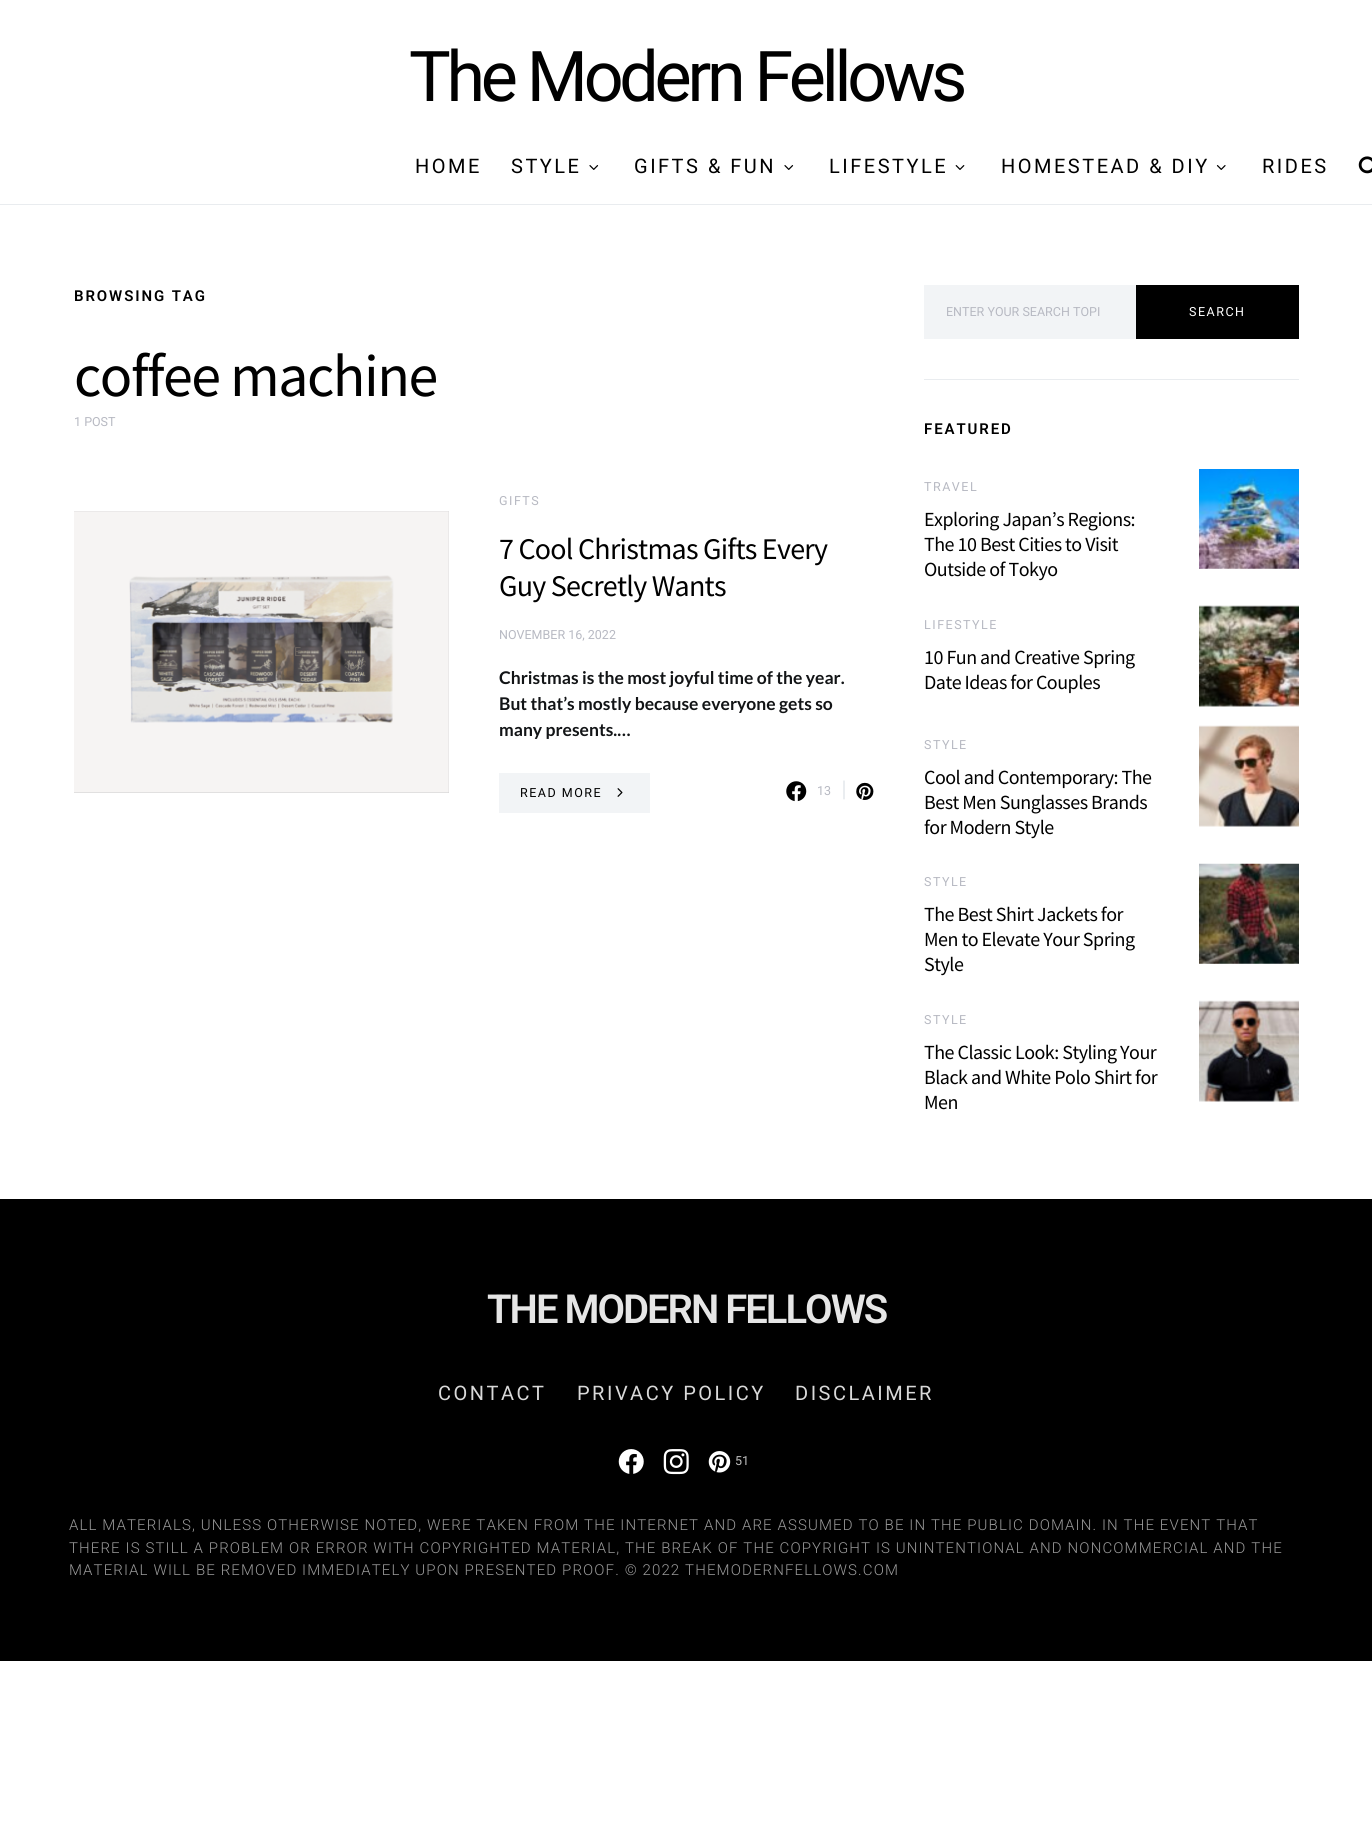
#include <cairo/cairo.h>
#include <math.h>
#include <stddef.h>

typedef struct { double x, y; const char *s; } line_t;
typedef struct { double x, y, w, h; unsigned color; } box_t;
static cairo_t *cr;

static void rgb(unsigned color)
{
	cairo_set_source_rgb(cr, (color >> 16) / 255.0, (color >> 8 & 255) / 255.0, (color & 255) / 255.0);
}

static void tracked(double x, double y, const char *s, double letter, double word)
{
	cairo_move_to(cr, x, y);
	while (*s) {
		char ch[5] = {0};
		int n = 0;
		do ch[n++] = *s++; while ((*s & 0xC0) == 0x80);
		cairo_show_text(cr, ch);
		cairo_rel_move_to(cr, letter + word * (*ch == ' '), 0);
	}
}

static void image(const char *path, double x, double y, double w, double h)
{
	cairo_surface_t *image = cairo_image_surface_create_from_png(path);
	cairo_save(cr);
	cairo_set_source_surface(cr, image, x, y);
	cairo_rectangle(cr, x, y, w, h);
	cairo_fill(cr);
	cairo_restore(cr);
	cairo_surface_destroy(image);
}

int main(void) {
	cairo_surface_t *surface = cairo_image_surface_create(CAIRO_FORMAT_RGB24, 1372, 1835);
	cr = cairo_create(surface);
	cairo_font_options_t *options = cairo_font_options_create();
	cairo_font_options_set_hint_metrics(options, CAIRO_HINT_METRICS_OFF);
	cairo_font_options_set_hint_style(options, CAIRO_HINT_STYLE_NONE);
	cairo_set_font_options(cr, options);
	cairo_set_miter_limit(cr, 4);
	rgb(0xffffff);
	cairo_paint(cr);
	rgb(0xe9ecef);
	cairo_rectangle(cr, 0, 204, 1372, 1);
	cairo_fill(cr);
	image("img/1.png", 589, 165, 10, 5);
	image("img/1.png", 784, 165, 10, 5);
	image("img/2.png", 955, 165, 10, 5);
	image("img/3.png", 1216, 165, 10, 5);
	image("img/4.png", 1358, 156, 14, 18);
	rgb(0xcccccc);
	cairo_rectangle(cr, 74, 511, 375, 282);
	cairo_fill(cr);
	image("img/5.png", 74, 511, 375, 282);
	rgb(0xf2f4f6);
	cairo_rectangle(cr, 499, 773, 151, 40);
	cairo_fill(cr);
	image("img/6.png", 617, 788, 6, 9);
	image("img/7.png", 786, 781, 21, 21);
	image("img/8.png", 856, 782, 18, 18);
	{
		static const box_t items[] = {
			{924, 379, 375, 1, 0xe9ecef},
			{924, 285, 212, 54, 0xf2f4f6},
			{1136, 285, 163, 54, 0x000000},
		};
		for (size_t i = 0; i < sizeof items / sizeof *items; i++) {
			rgb(items[i].color);
			cairo_rectangle(cr, items[i].x, items[i].y, items[i].w, items[i].h);
			cairo_fill(cr);
		}
	}
	image("img/9.png", 1199, 469, 100, 100);
	image("img/10.png", 1199, 605, 100, 102);
	image("img/11.png", 1199, 725, 100, 102);
	image("img/12.png", 1199, 863, 100, 101);
	image("img/13.png", 1199, 1000, 100, 102);
	cairo_rectangle(cr, 0, 1199, 1372, 462);
	cairo_fill(cr);
	image("img/14.png", 618, 1449, 26, 25);
	image("img/15.png", 663, 1449, 26, 26);
	image("img/16.png", 708, 1451, 23, 22);
	cairo_select_font_face(cr, "Roboto", CAIRO_FONT_SLANT_NORMAL, CAIRO_FONT_WEIGHT_NORMAL);
	cairo_set_font_size(cr, 70);
	tracked(409, 101, "The Modern Fellows", -4.25, 0);
	cairo_set_font_size(cr, 20);
	{
		static const line_t items[] = {
			{415, 173, "HOME"},
			{511, 173, "STYLE"},
			{634, 173, "GIFTS & FUN"},
			{829, 173, "LIFESTYLE"},
			{1001, 173, "HOMESTEAD & DIY"},
			{1262, 173, "RIDES"},
		};
		for (size_t i = 0; i < sizeof items / sizeof *items; i++) {
			tracked(items[i].x, items[i].y, items[i].s, 2.5, 0);
		}
	}
	cairo_select_font_face(cr, "Roboto SemiBold", CAIRO_FONT_SLANT_NORMAL, CAIRO_FONT_WEIGHT_NORMAL);
	cairo_set_font_size(cr, 15);
	tracked(74, 301, "BROWSING TAG", 1.9, 0);
	cairo_select_font_face(cr, "Source Sans Pro", CAIRO_FONT_SLANT_NORMAL, CAIRO_FONT_WEIGHT_NORMAL);
	cairo_set_font_size(cr, 60);
	tracked(74, 396, "coffee machine", -1.5, 0);
	cairo_select_font_face(cr, "Roboto", CAIRO_FONT_SLANT_NORMAL, CAIRO_FONT_WEIGHT_NORMAL);
	cairo_set_font_size(cr, 12.5);
	rgb(0xb7b9c2);
	cairo_move_to(cr, 74, 426);
	cairo_show_text(cr, "1 POST");
	rgb(0x6b645f);
	tracked(294, 656, "E", 1.5, 0);
	rgb(0xb7b9c2);
	tracked(499, 505, "GIFTS", 1.5, 0);
	cairo_select_font_face(cr, "Source Sans Pro", CAIRO_FONT_SLANT_NORMAL, CAIRO_FONT_WEIGHT_NORMAL);
	cairo_set_font_size(cr, 30);
	rgb(0x000000);
	tracked(499, 559, "7 Cool Christmas Gifts Every", -0.75, 0);
	tracked(499, 596, "Guy Secretly Wants", -0.75, 0);
	cairo_select_font_face(cr, "Roboto", CAIRO_FONT_SLANT_NORMAL, CAIRO_FONT_WEIGHT_NORMAL);
	cairo_set_font_size(cr, 12.5);
	rgb(0xb7b9c2);
	cairo_move_to(cr, 499, 639);
	cairo_show_text(cr, "NOVEMBER 16, 2022");
	cairo_select_font_face(cr, "Lato", CAIRO_FONT_SLANT_NORMAL, CAIRO_FONT_WEIGHT_BOLD);
	cairo_set_font_size(cr, 17.5);
	rgb(0x121416);
	{
		static const line_t items[] = {
			{499, 684, "Christmas is the most joyful time of the year."},
			{499, 710, "But that’s mostly because everyone gets so"},
			{499, 736, "many presents.…"},
		};
		for (size_t i = 0; i < sizeof items / sizeof *items; i++) {
			cairo_move_to(cr, items[i].x, items[i].y);
			cairo_show_text(cr, items[i].s);
		}
	}
	cairo_select_font_face(cr, "Roboto", CAIRO_FONT_SLANT_NORMAL, CAIRO_FONT_WEIGHT_NORMAL);
	cairo_set_font_size(cr, 12.5);
	rgb(0x000000);
	tracked(520, 797, "READ MORE", 1.5, 0);
	rgb(0xb7b9c2);
	cairo_move_to(cr, 817, 795);
	cairo_show_text(cr, "13");
	cairo_select_font_face(cr, "Lato", CAIRO_FONT_SLANT_NORMAL, CAIRO_FONT_WEIGHT_BOLD);
	cairo_set_font_size(cr, 20);
	rgb(0xe9ecef);
	cairo_move_to(cr, 841, 796);
	cairo_show_text(cr, "|");
	cairo_select_font_face(cr, "Roboto", CAIRO_FONT_SLANT_NORMAL, CAIRO_FONT_WEIGHT_NORMAL);
	cairo_set_font_size(cr, 12.5);
	rgb(0xb7b9c2);
	cairo_move_to(cr, 946, 316);
	cairo_show_text(cr, "ENTER YOUR SEARCH TOPI");
	rgb(0xffffff);
	tracked(1189, 316, "SEARCH", 1.5, 0);
	cairo_select_font_face(cr, "Roboto SemiBold", CAIRO_FONT_SLANT_NORMAL, CAIRO_FONT_WEIGHT_NORMAL);
	cairo_set_font_size(cr, 15);
	rgb(0x000000);
	tracked(924, 434, "FEATURED", 1.9, 0);
	cairo_select_font_face(cr, "Roboto", CAIRO_FONT_SLANT_NORMAL, CAIRO_FONT_WEIGHT_NORMAL);
	cairo_set_font_size(cr, 12.5);
	rgb(0xb7b9c2);
	tracked(924, 491, "TRAVEL", 1.5, 0);
	cairo_select_font_face(cr, "Source Sans Pro", CAIRO_FONT_SLANT_NORMAL, CAIRO_FONT_WEIGHT_NORMAL);
	cairo_set_font_size(cr, 20);
	rgb(0x000000);
	{
		static const line_t items[] = {
			{924, 526, "Exploring Japan’s Regions:"},
			{924, 551, "The 10 Best Cities to Visit"},
			{924, 576, "Outside of Tokyo"},
		};
		for (size_t i = 0; i < sizeof items / sizeof *items; i++) {
			tracked(items[i].x, items[i].y, items[i].s, -0.5, 0);
		}
	}
	cairo_select_font_face(cr, "Roboto", CAIRO_FONT_SLANT_NORMAL, CAIRO_FONT_WEIGHT_NORMAL);
	cairo_set_font_size(cr, 12.5);
	rgb(0xb7b9c2);
	tracked(924, 629, "LIFESTYLE", 1.5, 0);
	cairo_select_font_face(cr, "Source Sans Pro", CAIRO_FONT_SLANT_NORMAL, CAIRO_FONT_WEIGHT_NORMAL);
	cairo_set_font_size(cr, 20);
	rgb(0x000000);
	tracked(924, 664, "10 Fun and Creative Spring", -0.5, 0);
	tracked(924, 689, "Date Ideas for Couples", -0.5, 0);
	cairo_select_font_face(cr, "Roboto", CAIRO_FONT_SLANT_NORMAL, CAIRO_FONT_WEIGHT_NORMAL);
	cairo_set_font_size(cr, 12.5);
	rgb(0xb7b9c2);
	tracked(924, 749, "STYLE", 1.5, 0);
	cairo_select_font_face(cr, "Source Sans Pro", CAIRO_FONT_SLANT_NORMAL, CAIRO_FONT_WEIGHT_NORMAL);
	cairo_set_font_size(cr, 20);
	rgb(0x000000);
	{
		static const line_t items[] = {
			{924, 784, "Cool and Contemporary: The"},
			{924, 809, "Best Men Sunglasses Brands"},
			{924, 834, "for Modern Style"},
		};
		for (size_t i = 0; i < sizeof items / sizeof *items; i++) {
			tracked(items[i].x, items[i].y, items[i].s, -0.5, 0);
		}
	}
	cairo_select_font_face(cr, "Roboto", CAIRO_FONT_SLANT_NORMAL, CAIRO_FONT_WEIGHT_NORMAL);
	cairo_set_font_size(cr, 12.5);
	rgb(0xb7b9c2);
	tracked(924, 886, "STYLE", 1.5, 0);
	cairo_select_font_face(cr, "Source Sans Pro", CAIRO_FONT_SLANT_NORMAL, CAIRO_FONT_WEIGHT_NORMAL);
	cairo_set_font_size(cr, 20);
	rgb(0x000000);
	{
		static const line_t items[] = {
			{924, 921, "The Best Shirt Jackets for"},
			{924, 946, "Men to Elevate Your Spring"},
			{924, 971, "Style"},
		};
		for (size_t i = 0; i < sizeof items / sizeof *items; i++) {
			tracked(items[i].x, items[i].y, items[i].s, -0.5, 0);
		}
	}
	cairo_select_font_face(cr, "Roboto", CAIRO_FONT_SLANT_NORMAL, CAIRO_FONT_WEIGHT_NORMAL);
	cairo_set_font_size(cr, 12.5);
	rgb(0xb7b9c2);
	tracked(924, 1024, "STYLE", 1.5, 0);
	cairo_select_font_face(cr, "Source Sans Pro", CAIRO_FONT_SLANT_NORMAL, CAIRO_FONT_WEIGHT_NORMAL);
	cairo_set_font_size(cr, 20);
	rgb(0x000000);
	{
		static const line_t items[] = {
			{924, 1059, "The Classic Look: Styling Your"},
			{924, 1084, "Black and White Polo Shirt for"},
			{924, 1109, "Men"},
		};
		for (size_t i = 0; i < sizeof items / sizeof *items; i++) {
			tracked(items[i].x, items[i].y, items[i].s, -0.5, 0);
		}
	}
	cairo_select_font_face(cr, "Roboto SemiBold", CAIRO_FONT_SLANT_NORMAL, CAIRO_FONT_WEIGHT_NORMAL);
	cairo_set_font_size(cr, 40);
	rgb(0xe6e6e6);
	tracked(487, 1323, "THE MODERN FELLOWS", -2, 0);
	cairo_select_font_face(cr, "Roboto", CAIRO_FONT_SLANT_NORMAL, CAIRO_FONT_WEIGHT_NORMAL);
	cairo_set_font_size(cr, 20);
	rgb(0xd9d9d9);
	{
		static const line_t items[] = {
			{438, 1400, "CONTACT"},
			{577, 1400, "PRIVACY POLICY"},
			{795, 1400, "DISCLAIMER"},
		};
		for (size_t i = 0; i < sizeof items / sizeof *items; i++) {
			tracked(items[i].x, items[i].y, items[i].s, 2.5, 0);
		}
	}
	cairo_set_font_size(cr, 12.5);
	rgb(0xbfbfbf);
	cairo_move_to(cr, 735, 1465);
	cairo_show_text(cr, "51");
	cairo_select_font_face(cr, "Roboto Light", CAIRO_FONT_SLANT_NORMAL, CAIRO_FONT_WEIGHT_NORMAL);
	cairo_set_font_size(cr, 15);
	rgb(0x999999);
	{
		static const line_t items[] = {
			{69, 1530, "ALL MATERIALS, UNLESS OTHERWISE NOTED, WERE TAKEN FROM THE INTERNET AND ARE ASSUMED TO BE IN THE PUBLIC DOMAIN. IN THE EVENT THAT"},
			{69, 1553, "THERE IS STILL A PROBLEM OR ERROR WITH COPYRIGHTED MATERIAL, THE BREAK OF THE COPYRIGHT IS UNINTENTIONAL AND NONCOMMERCIAL AND THE"},
			{69, 1575, "MATERIAL WILL BE REMOVED IMMEDIATELY UPON PRESENTED PROOF. © 2022 THEMODERNFELLOWS.COM"},
		};
		for (size_t i = 0; i < sizeof items / sizeof *items; i++) {
			tracked(items[i].x, items[i].y, items[i].s, 1.12, 0);
		}
	}
	cairo_surface_write_to_png(surface, "page.png");
	cairo_font_options_destroy(options);
	cairo_destroy(cr);
	cairo_surface_destroy(surface);
	return 0;
}
